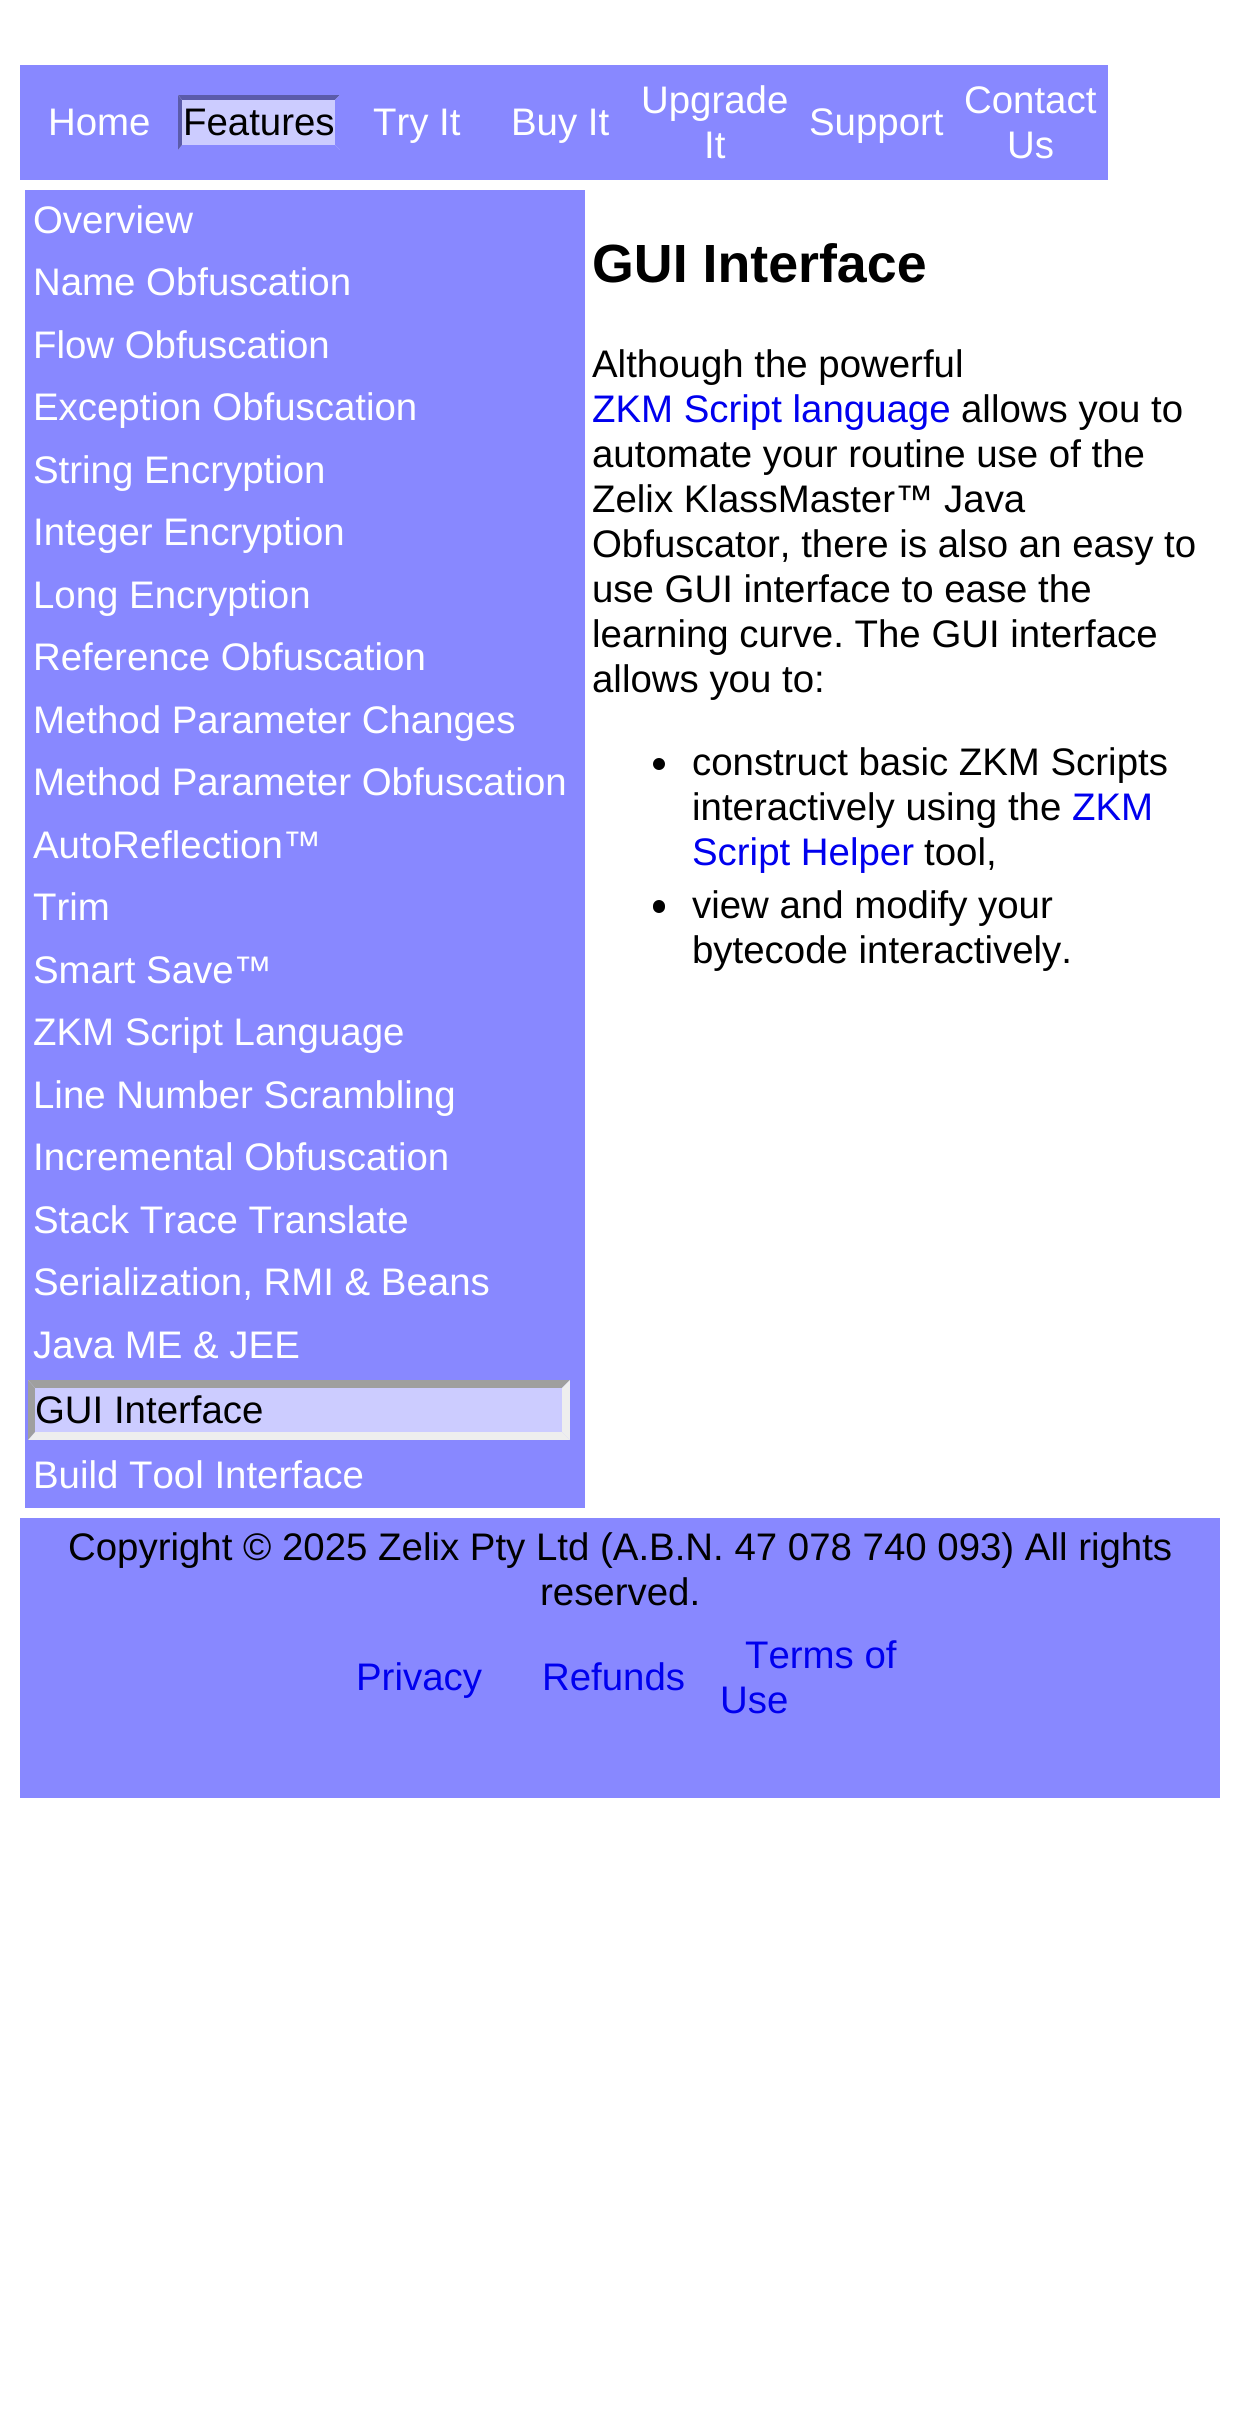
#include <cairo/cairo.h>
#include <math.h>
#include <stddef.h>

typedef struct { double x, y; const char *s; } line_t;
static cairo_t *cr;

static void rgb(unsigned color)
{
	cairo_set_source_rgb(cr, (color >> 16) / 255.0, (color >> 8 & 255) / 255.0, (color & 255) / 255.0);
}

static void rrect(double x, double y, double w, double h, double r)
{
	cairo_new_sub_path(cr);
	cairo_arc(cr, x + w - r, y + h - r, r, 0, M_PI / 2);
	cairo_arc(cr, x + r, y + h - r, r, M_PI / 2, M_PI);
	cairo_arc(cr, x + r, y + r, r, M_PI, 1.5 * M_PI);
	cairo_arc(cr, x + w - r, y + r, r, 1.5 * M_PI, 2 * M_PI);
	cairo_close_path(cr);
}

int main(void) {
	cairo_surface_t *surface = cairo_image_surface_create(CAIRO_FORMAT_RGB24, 1239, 2425);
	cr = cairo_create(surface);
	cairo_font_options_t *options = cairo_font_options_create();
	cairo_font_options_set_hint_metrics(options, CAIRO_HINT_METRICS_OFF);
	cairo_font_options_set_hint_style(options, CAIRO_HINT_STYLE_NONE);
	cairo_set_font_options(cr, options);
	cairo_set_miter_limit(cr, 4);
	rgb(0xffffff);
	cairo_paint(cr);
	rgb(0x8888ff);
	cairo_rectangle(cr, 20, 65, 1088, 115);
	cairo_fill(cr);
	rgb(0xccccff);
	cairo_rectangle(cr, 178, 95, 162, 55);
	cairo_fill(cr);
	rgb(0x5b5baa);
	cairo_new_path(cr);
	cairo_move_to(cr, 178, 95);
	cairo_line_to(cr, 340, 95);
	cairo_line_to(cr, 335, 100);
	cairo_line_to(cr, 182, 100);
	cairo_close_path(cr);
	cairo_fill(cr);
	rgb(0x8888ff);
	cairo_new_path(cr);
	cairo_move_to(cr, 340, 95);
	cairo_line_to(cr, 340, 150);
	cairo_line_to(cr, 335, 145);
	cairo_line_to(cr, 335, 100);
	cairo_close_path(cr);
	cairo_fill(cr);
	cairo_new_path(cr);
	cairo_move_to(cr, 340, 150);
	cairo_line_to(cr, 178, 150);
	cairo_line_to(cr, 182, 145);
	cairo_line_to(cr, 335, 145);
	cairo_close_path(cr);
	cairo_fill(cr);
	rgb(0x5b5baa);
	cairo_new_path(cr);
	cairo_move_to(cr, 178, 150);
	cairo_line_to(cr, 178, 95);
	cairo_line_to(cr, 182, 100);
	cairo_line_to(cr, 182, 145);
	cairo_close_path(cr);
	cairo_fill(cr);
	rgb(0x8888ff);
	cairo_rectangle(cr, 25, 190, 560, 1318);
	cairo_fill(cr);
	rgb(0xccccff);
	cairo_rectangle(cr, 28, 1380, 542, 60);
	cairo_fill(cr);
	rgb(0x9f9f9f);
	cairo_new_path(cr);
	cairo_move_to(cr, 28, 1380);
	cairo_line_to(cr, 570, 1380);
	cairo_line_to(cr, 562, 1388);
	cairo_line_to(cr, 35, 1388);
	cairo_close_path(cr);
	cairo_fill(cr);
	rgb(0xeeeeee);
	cairo_new_path(cr);
	cairo_move_to(cr, 570, 1380);
	cairo_line_to(cr, 570, 1440);
	cairo_line_to(cr, 562, 1432);
	cairo_line_to(cr, 562, 1388);
	cairo_close_path(cr);
	cairo_fill(cr);
	cairo_new_path(cr);
	cairo_move_to(cr, 570, 1440);
	cairo_line_to(cr, 28, 1440);
	cairo_line_to(cr, 35, 1432);
	cairo_line_to(cr, 562, 1432);
	cairo_close_path(cr);
	cairo_fill(cr);
	rgb(0x9f9f9f);
	cairo_new_path(cr);
	cairo_move_to(cr, 28, 1440);
	cairo_line_to(cr, 28, 1380);
	cairo_line_to(cr, 35, 1388);
	cairo_line_to(cr, 35, 1432);
	cairo_close_path(cr);
	cairo_fill(cr);
	rgb(0x000000);
	cairo_arc(cr, 659, 764, 6, 0, 2 * M_PI);
	cairo_fill(cr);
	rrect(653, 900, 12, 13, 6);
	cairo_fill(cr);
	rgb(0x8888ff);
	cairo_rectangle(cr, 20, 1518, 1200, 280);
	cairo_fill(cr);
	cairo_select_font_face(cr, "Liberation Sans", CAIRO_FONT_SLANT_NORMAL, CAIRO_FONT_WEIGHT_NORMAL);
	cairo_set_font_size(cr, 38.4);
	rgb(0xffffff);
	cairo_move_to(cr, 48, 135);
	cairo_show_text(cr, "Home");
	rgb(0x000000);
	cairo_move_to(cr, 183, 135);
	cairo_show_text(cr, "Features");
	rgb(0xffffff);
	{
		static const line_t items[] = {
			{373, 135, "Try It"},
			{511, 135, "Buy It"},
			{641, 113, "Upgrade"},
			{704, 158, "It"},
			{809, 135, "Support"},
			{964, 113, "Contact"},
			{1007, 158, "Us"},
			{33, 233, "Overview"},
			{33, 295, "Name Obfuscation"},
			{33, 358, "Flow Obfuscation"},
			{33, 420, "Exception Obfuscation"},
			{33, 483, "String Encryption"},
			{33, 545, "Integer Encryption"},
			{33, 608, "Long Encryption"},
			{33, 670, "Reference Obfuscation"},
			{33, 733, "Method Parameter Changes"},
			{33, 795, "Method Parameter Obfuscation"},
			{33, 858, "AutoReflection™"},
			{33, 920, "Trim"},
			{33, 983, "Smart Save™"},
			{33, 1045, "ZKM Script Language"},
			{33, 1108, "Line Number Scrambling"},
			{33, 1170, "Incremental Obfuscation"},
			{33, 1233, "Stack Trace Translate"},
			{33, 1295, "Serialization, RMI & Beans"},
			{33, 1358, "Java ME & JEE"},
		};
		for (size_t i = 0; i < sizeof items / sizeof *items; i++) {
			cairo_move_to(cr, items[i].x, items[i].y);
			cairo_show_text(cr, items[i].s);
		}
	}
	rgb(0x000000);
	cairo_move_to(cr, 35, 1423);
	cairo_show_text(cr, "GUI Interface");
	rgb(0xffffff);
	cairo_move_to(cr, 33, 1488);
	cairo_show_text(cr, "Build Tool Interface");
	cairo_select_font_face(cr, "Liberation Sans", CAIRO_FONT_SLANT_NORMAL, CAIRO_FONT_WEIGHT_BOLD);
	cairo_set_font_size(cr, 53.75);
	rgb(0x000000);
	cairo_move_to(cr, 592, 282);
	cairo_show_text(cr, "GUI Interface");
	cairo_select_font_face(cr, "Liberation Sans", CAIRO_FONT_SLANT_NORMAL, CAIRO_FONT_WEIGHT_NORMAL);
	cairo_set_font_size(cr, 38.4);
	cairo_move_to(cr, 592, 377);
	cairo_show_text(cr, "Although the powerful");
	rgb(0x0000ee);
	cairo_move_to(cr, 592, 422);
	cairo_show_text(cr, "ZKM Script language");
	rgb(0x000000);
	{
		static const line_t items[] = {
			{961, 422, "allows you to"},
			{592, 467, "automate your routine use of the"},
			{592, 512, "Zelix KlassMaster™ Java"},
			{592, 557, "Obfuscator, there is also an easy to"},
			{592, 602, "use GUI interface to ease the"},
			{592, 647, "learning curve. The GUI interface"},
			{592, 692, "allows you to:"},
			{692, 775, "construct basic ZKM Scripts"},
			{692, 820, "interactively using the"},
		};
		for (size_t i = 0; i < sizeof items / sizeof *items; i++) {
			cairo_move_to(cr, items[i].x, items[i].y);
			cairo_show_text(cr, items[i].s);
		}
	}
	rgb(0x0000ee);
	cairo_move_to(cr, 1072, 820);
	cairo_show_text(cr, "ZKM");
	cairo_move_to(cr, 692, 865);
	cairo_show_text(cr, "Script Helper");
	rgb(0x000000);
	{
		static const line_t items[] = {
			{924, 865, "tool,"},
			{692, 918, "view and modify your"},
			{692, 963, "bytecode interactively."},
			{68, 1560, "Copyright © 2025 Zelix Pty Ltd (A.B.N. 47 078 740 093) All rights"},
			{540, 1605, "reserved."},
		};
		for (size_t i = 0; i < sizeof items / sizeof *items; i++) {
			cairo_move_to(cr, items[i].x, items[i].y);
			cairo_show_text(cr, items[i].s);
		}
	}
	rgb(0x0000ee);
	{
		static const line_t items[] = {
			{356, 1690, "Privacy"},
			{542, 1690, "Refunds"},
			{745, 1668, "Terms of"},
			{720, 1713, "Use"},
		};
		for (size_t i = 0; i < sizeof items / sizeof *items; i++) {
			cairo_move_to(cr, items[i].x, items[i].y);
			cairo_show_text(cr, items[i].s);
		}
	}
	cairo_surface_write_to_png(surface, "page.png");
	cairo_font_options_destroy(options);
	cairo_destroy(cr);
	cairo_surface_destroy(surface);
	return 0;
}
